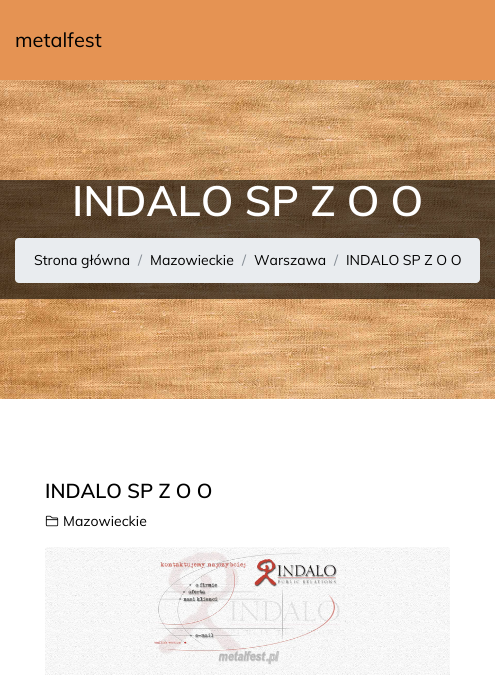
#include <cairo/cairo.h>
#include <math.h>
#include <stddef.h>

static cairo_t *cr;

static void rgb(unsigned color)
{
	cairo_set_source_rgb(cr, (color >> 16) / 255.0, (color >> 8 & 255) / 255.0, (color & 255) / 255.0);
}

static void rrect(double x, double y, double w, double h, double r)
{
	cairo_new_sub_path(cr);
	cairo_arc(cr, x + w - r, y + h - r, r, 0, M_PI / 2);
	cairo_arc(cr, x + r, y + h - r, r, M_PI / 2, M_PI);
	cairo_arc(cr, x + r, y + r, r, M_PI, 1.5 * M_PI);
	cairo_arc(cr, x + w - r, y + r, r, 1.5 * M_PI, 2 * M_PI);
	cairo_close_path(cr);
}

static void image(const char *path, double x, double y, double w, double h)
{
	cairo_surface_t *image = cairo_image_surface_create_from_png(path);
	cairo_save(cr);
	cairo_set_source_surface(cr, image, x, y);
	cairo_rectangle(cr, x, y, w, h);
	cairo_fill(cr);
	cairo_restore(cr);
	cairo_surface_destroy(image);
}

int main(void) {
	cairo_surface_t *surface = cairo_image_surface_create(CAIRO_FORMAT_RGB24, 495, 675);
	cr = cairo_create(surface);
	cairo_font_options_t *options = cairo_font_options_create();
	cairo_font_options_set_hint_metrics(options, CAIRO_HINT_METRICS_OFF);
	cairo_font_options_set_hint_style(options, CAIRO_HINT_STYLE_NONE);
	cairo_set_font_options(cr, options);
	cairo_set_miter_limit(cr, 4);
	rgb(0xffffff);
	cairo_paint(cr);
	rgb(0xe59353);
	cairo_rectangle(cr, 0, 0, 495, 80);
	cairo_fill(cr);
	image("img/1.png", 0, 80, 495, 319);
	cairo_set_source_rgba(cr, 0, 0, 0, 0.6);
	cairo_rectangle(cr, 0, 180, 495, 119);
	cairo_fill(cr);
	rgb(0xe9ecef);
	rrect(15, 238, 465, 45, 4);
	cairo_fill(cr);
	image("img/2.png", 45, 515, 14, 12);
	image("img/3.png", 45, 547, 405, 128);
	cairo_select_font_face(cr, "Muli", CAIRO_FONT_SLANT_NORMAL, CAIRO_FONT_WEIGHT_NORMAL);
	cairo_set_font_size(cr, 20);
	rgb(0x000000);
	cairo_move_to(cr, 15, 47);
	cairo_show_text(cr, "metalfest");
	cairo_select_font_face(cr, "Muli SemiBold", CAIRO_FONT_SLANT_NORMAL, CAIRO_FONT_WEIGHT_NORMAL);
	cairo_set_font_size(cr, 42);
	rgb(0xffffff);
	cairo_move_to(cr, 72, 216);
	cairo_show_text(cr, "INDALO SP Z O O");
	cairo_select_font_face(cr, "Muli", CAIRO_FONT_SLANT_NORMAL, CAIRO_FONT_WEIGHT_NORMAL);
	cairo_set_font_size(cr, 14);
	rgb(0x000000);
	cairo_move_to(cr, 34, 265);
	cairo_show_text(cr, "Strona główna");
	rgb(0x868e96);
	cairo_move_to(cr, 138, 265);
	cairo_show_text(cr, "/");
	rgb(0x000000);
	cairo_move_to(cr, 150, 265);
	cairo_show_text(cr, "Mazowieckie");
	rgb(0x868e96);
	cairo_move_to(cr, 242, 265);
	cairo_show_text(cr, "/");
	rgb(0x000000);
	cairo_move_to(cr, 254, 265);
	cairo_show_text(cr, "Warszawa");
	rgb(0x868e96);
	cairo_move_to(cr, 334, 265);
	cairo_show_text(cr, "/");
	rgb(0x000000);
	cairo_move_to(cr, 346, 265);
	cairo_show_text(cr, "INDALO SP Z O O");
	cairo_select_font_face(cr, "Muli SemiBold", CAIRO_FONT_SLANT_NORMAL, CAIRO_FONT_WEIGHT_NORMAL);
	cairo_set_font_size(cr, 20);
	cairo_move_to(cr, 45, 498);
	cairo_show_text(cr, "INDALO SP Z O O");
	cairo_select_font_face(cr, "Muli", CAIRO_FONT_SLANT_NORMAL, CAIRO_FONT_WEIGHT_NORMAL);
	cairo_set_font_size(cr, 14);
	cairo_move_to(cr, 63, 526);
	cairo_show_text(cr, "Mazowieckie");
	cairo_surface_write_to_png(surface, "page.png");
	cairo_font_options_destroy(options);
	cairo_destroy(cr);
	cairo_surface_destroy(surface);
	return 0;
}
